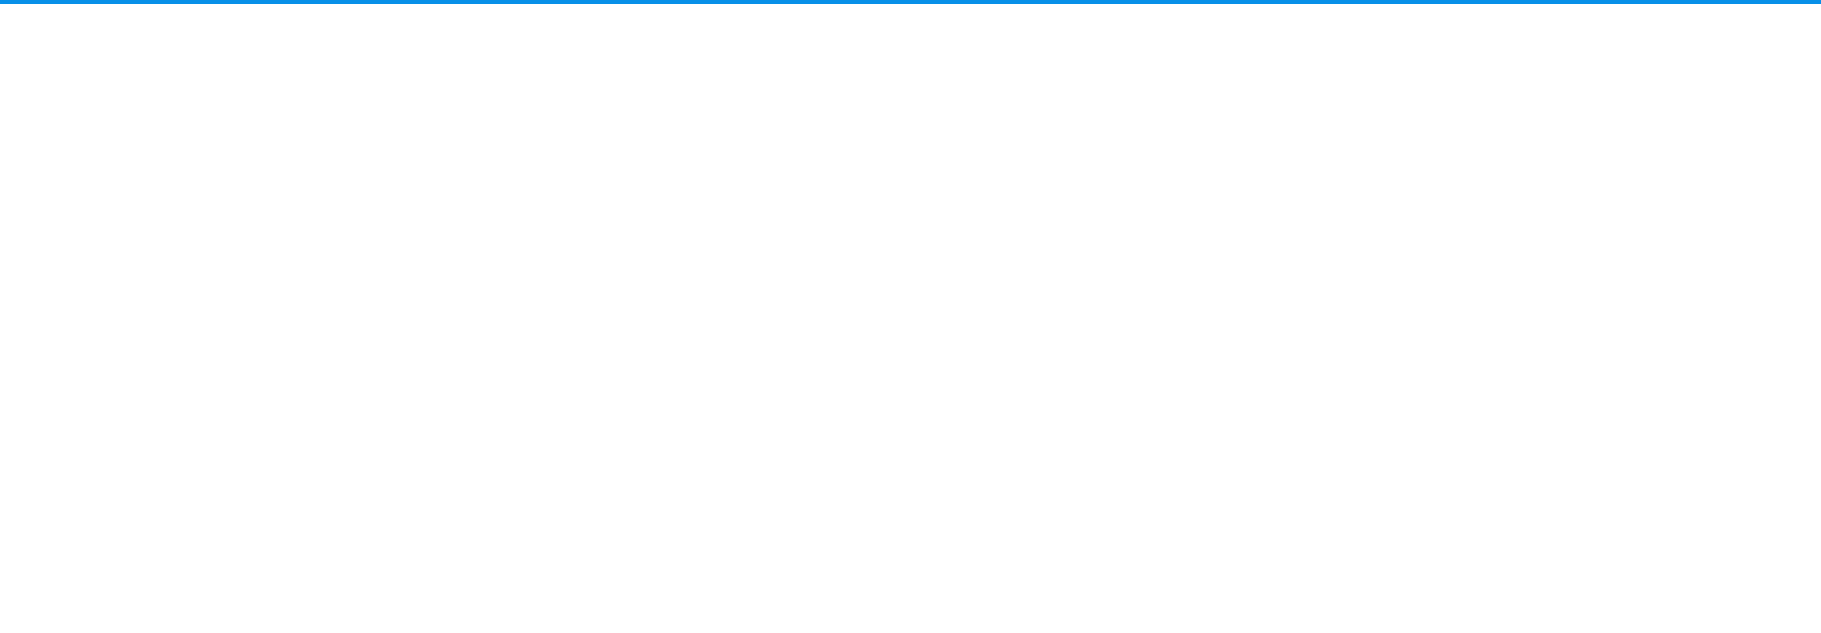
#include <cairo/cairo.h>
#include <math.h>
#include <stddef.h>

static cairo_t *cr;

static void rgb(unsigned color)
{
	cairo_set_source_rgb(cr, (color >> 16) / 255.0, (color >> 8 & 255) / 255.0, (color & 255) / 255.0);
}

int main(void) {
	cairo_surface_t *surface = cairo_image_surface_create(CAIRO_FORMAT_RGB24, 1821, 633);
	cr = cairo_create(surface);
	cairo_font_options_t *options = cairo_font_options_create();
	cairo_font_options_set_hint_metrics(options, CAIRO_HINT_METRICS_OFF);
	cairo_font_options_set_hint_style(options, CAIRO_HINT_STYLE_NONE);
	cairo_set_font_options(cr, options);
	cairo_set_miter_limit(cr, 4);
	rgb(0xffffff);
	cairo_paint(cr);
	rgb(0x0790e8);
	cairo_rectangle(cr, 0, 0, 1821, 4);
	cairo_fill(cr);
	cairo_surface_write_to_png(surface, "page.png");
	cairo_font_options_destroy(options);
	cairo_destroy(cr);
	cairo_surface_destroy(surface);
	return 0;
}
